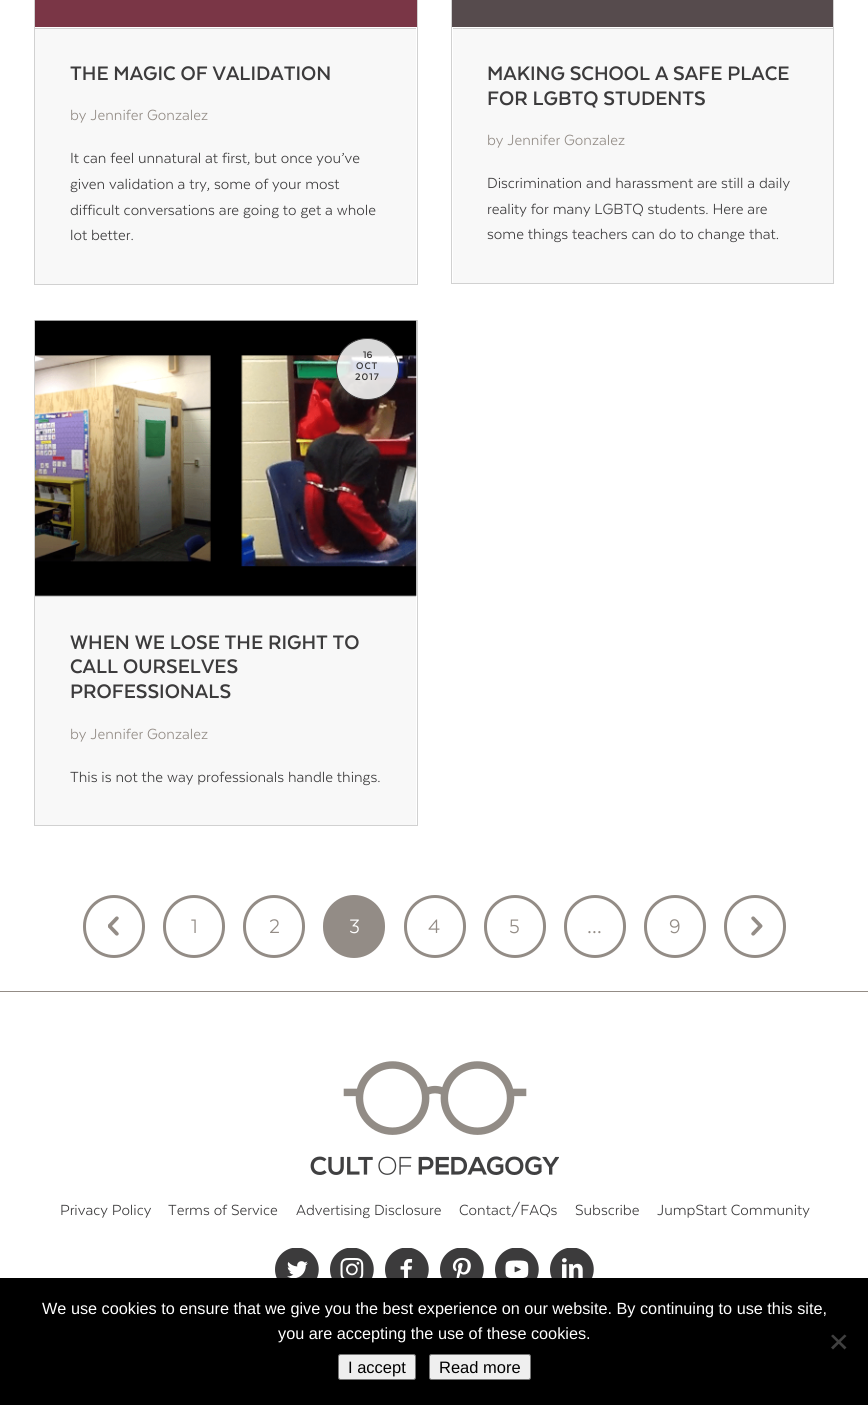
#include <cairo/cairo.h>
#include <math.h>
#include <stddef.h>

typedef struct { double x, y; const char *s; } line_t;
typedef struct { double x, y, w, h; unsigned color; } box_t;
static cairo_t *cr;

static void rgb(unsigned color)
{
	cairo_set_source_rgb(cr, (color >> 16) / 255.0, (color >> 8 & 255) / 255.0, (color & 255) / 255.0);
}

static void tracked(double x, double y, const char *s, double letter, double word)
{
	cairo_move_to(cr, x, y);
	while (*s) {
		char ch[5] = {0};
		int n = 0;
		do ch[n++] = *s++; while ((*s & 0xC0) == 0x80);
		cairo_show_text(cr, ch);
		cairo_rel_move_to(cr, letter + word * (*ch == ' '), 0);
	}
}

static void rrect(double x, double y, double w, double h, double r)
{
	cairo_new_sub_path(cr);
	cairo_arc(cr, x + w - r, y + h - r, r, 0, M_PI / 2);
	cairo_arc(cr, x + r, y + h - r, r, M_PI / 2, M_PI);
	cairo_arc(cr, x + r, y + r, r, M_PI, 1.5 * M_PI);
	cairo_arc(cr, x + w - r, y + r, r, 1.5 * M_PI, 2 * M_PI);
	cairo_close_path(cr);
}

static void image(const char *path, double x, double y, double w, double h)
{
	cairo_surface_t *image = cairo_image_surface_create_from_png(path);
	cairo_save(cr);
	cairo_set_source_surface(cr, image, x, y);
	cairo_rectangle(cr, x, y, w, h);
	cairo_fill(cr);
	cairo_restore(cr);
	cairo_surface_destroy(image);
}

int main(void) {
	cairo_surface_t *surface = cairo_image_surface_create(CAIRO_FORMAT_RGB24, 868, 1405);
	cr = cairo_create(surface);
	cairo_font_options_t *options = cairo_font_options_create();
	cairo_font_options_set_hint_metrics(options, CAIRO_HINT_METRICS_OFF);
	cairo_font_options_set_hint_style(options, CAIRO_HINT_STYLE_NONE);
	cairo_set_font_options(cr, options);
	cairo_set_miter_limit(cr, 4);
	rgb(0xffffff);
	cairo_paint(cr);
	cairo_rectangle(cr, 34.5, -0.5, 383, 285);
	rgb(0xd1d1d1);
	cairo_set_line_width(cr, 1);
	cairo_stroke(cr);
	{
		static const box_t items[] = {
			{35, 0, 382, 27, 0x7a3646},
			{35, 29, 381, 255, 0xf8f8f8},
			{35, 28, 381, 1, 0xd1d1d1},
		};
		for (size_t i = 0; i < sizeof items / sizeof *items; i++) {
			rgb(items[i].color);
			cairo_rectangle(cr, items[i].x, items[i].y, items[i].w, items[i].h);
			cairo_fill(cr);
		}
	}
	cairo_rectangle(cr, 451.5, -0.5, 382, 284);
	cairo_stroke(cr);
	{
		static const box_t items[] = {
			{452, 0, 381, 27, 0x564b4d},
			{453, 29, 380, 254, 0xf8f8f8},
			{453, 28, 380, 1, 0xd1d1d1},
		};
		for (size_t i = 0; i < sizeof items / sizeof *items; i++) {
			rgb(items[i].color);
			cairo_rectangle(cr, items[i].x, items[i].y, items[i].w, items[i].h);
			cairo_fill(cr);
		}
	}
	cairo_rectangle(cr, 34.5, 320.5, 383, 505);
	cairo_stroke(cr);
	image("img/1.png", 35, 320, 382, 276);
	rgb(0xf8f8f8);
	cairo_rectangle(cr, 35, 597, 381, 228);
	cairo_fill(cr);
	rgb(0xd1d1d1);
	cairo_rectangle(cr, 35, 596, 381, 1);
	cairo_fill(cr);
	cairo_set_source_rgba(cr, 1, 1, 1, 0.85);
	rrect(336.5, 338.5, 62, 61, 30.5);
	cairo_fill_preserve(cr);
	rgb(0x3c3b3c);
	cairo_stroke(cr);
	image("img/2.png", 108, 916, 11, 20);
	rrect(84.5, 896.5, 59, 60, 29.5);
	rgb(0x938c86);
	cairo_set_line_width(cr, 3);
	cairo_stroke(cr);
	rrect(164.5, 896.5, 59, 60, 29.5);
	cairo_stroke(cr);
	rrect(244.5, 896.5, 59, 60, 29.5);
	cairo_stroke(cr);
	rrect(324.5, 896.5, 59, 60, 29.5);
	cairo_fill_preserve(cr);
	cairo_stroke(cr);
	rrect(405.5, 896.5, 59, 60, 29.5);
	cairo_stroke(cr);
	rrect(485.5, 896.5, 59, 60, 29.5);
	cairo_stroke(cr);
	rrect(565.5, 896.5, 59, 60, 29.5);
	cairo_stroke(cr);
	rrect(645.5, 896.5, 59, 60, 29.5);
	cairo_stroke(cr);
	image("img/3.png", 751, 916, 12, 20);
	rrect(725.5, 896.5, 59, 60, 29.5);
	cairo_stroke(cr);
	cairo_rectangle(cr, 0, 991, 868, 1);
	cairo_fill(cr);
	image("img/4.png", 310, 1061, 249, 114);
	image("img/5.png", 275, 1248, 44, 30);
	image("img/6.png", 330, 1248, 44, 30);
	image("img/7.png", 385, 1248, 44, 30);
	image("img/8.png", 440, 1248, 44, 30);
	image("img/9.png", 495, 1248, 44, 30);
	image("img/10.png", 550, 1248, 44, 30);
	rgb(0x000000);
	cairo_rectangle(cr, 0, 1278, 868, 127);
	cairo_fill(cr);
	rgb(0x404040);
	cairo_new_path(cr);
	cairo_move_to(cr, 844.5, 1334.5);
	cairo_line_to(cr, 846.5, 1336);
	cairo_line_to(cr, 833, 1349.5);
	cairo_line_to(cr, 831, 1347.5);
	cairo_close_path(cr);
	cairo_fill(cr);
	cairo_new_path(cr);
	cairo_move_to(cr, 831, 1336);
	cairo_line_to(cr, 833, 1334.5);
	cairo_line_to(cr, 846.5, 1347.5);
	cairo_line_to(cr, 844.5, 1349.5);
	cairo_close_path(cr);
	cairo_fill(cr);
	rgb(0xefefef);
	rrect(338.5, 1354.5, 77, 25, 2);
	cairo_fill_preserve(cr);
	rgb(0x767676);
	cairo_set_line_width(cr, 1);
	cairo_stroke(cr);
	rgb(0xefefef);
	rrect(429.5, 1354.5, 101, 25, 2);
	cairo_fill_preserve(cr);
	rgb(0x767676);
	cairo_stroke(cr);
	cairo_select_font_face(cr, "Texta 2", CAIRO_FONT_SLANT_NORMAL, CAIRO_FONT_WEIGHT_NORMAL);
	cairo_set_font_size(cr, 22.5);
	rgb(0x3c3b3c);
	cairo_move_to(cr, 70, 80);
	cairo_show_text(cr, "THE MAGIC OF VALIDATION");
	cairo_select_font_face(cr, "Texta", CAIRO_FONT_SLANT_NORMAL, CAIRO_FONT_WEIGHT_NORMAL);
	cairo_set_font_size(cr, 16.9);
	rgb(0x938c86);
	cairo_move_to(cr, 70, 120);
	cairo_show_text(cr, "by Jennifer Gonzalez");
	rgb(0x3c3b3c);
	{
		static const line_t items[] = {
			{70, 163, "It can feel unnatural at first, but once you’ve"},
			{70, 189, "given validation a try, some of your most"},
			{70, 215, "difficult conversations are going to get a whole"},
			{70, 240, "lot better."},
		};
		for (size_t i = 0; i < sizeof items / sizeof *items; i++) {
			cairo_move_to(cr, items[i].x, items[i].y);
			cairo_show_text(cr, items[i].s);
		}
	}
	cairo_select_font_face(cr, "Texta 2", CAIRO_FONT_SLANT_NORMAL, CAIRO_FONT_WEIGHT_NORMAL);
	cairo_set_font_size(cr, 22.5);
	cairo_move_to(cr, 487, 80);
	cairo_show_text(cr, "MAKING SCHOOL A SAFE PLACE");
	cairo_move_to(cr, 487, 105);
	cairo_show_text(cr, "FOR LGBTQ STUDENTS");
	cairo_select_font_face(cr, "Texta", CAIRO_FONT_SLANT_NORMAL, CAIRO_FONT_WEIGHT_NORMAL);
	cairo_set_font_size(cr, 16.9);
	rgb(0x938c86);
	cairo_move_to(cr, 487, 145);
	cairo_show_text(cr, "by Jennifer Gonzalez");
	rgb(0x3c3b3c);
	{
		static const line_t items[] = {
			{487, 188, "Discrimination and harassment are still a daily"},
			{487, 214, "reality for many LGBTQ students. Here are"},
			{487, 239, "some things teachers can do to change that."},
		};
		for (size_t i = 0; i < sizeof items / sizeof *items; i++) {
			cairo_move_to(cr, items[i].x, items[i].y);
			cairo_show_text(cr, items[i].s);
		}
	}
	cairo_select_font_face(cr, "Texta 2", CAIRO_FONT_SLANT_NORMAL, CAIRO_FONT_WEIGHT_NORMAL);
	cairo_set_font_size(cr, 11);
	cairo_move_to(cr, 363, 358);
	cairo_show_text(cr, "16");
	tracked(356, 369, "OCT", 1, 0);
	tracked(355, 380, "2017", 1, 0);
	cairo_set_font_size(cr, 22.5);
	{
		static const line_t items[] = {
			{70, 649, "WHEN WE LOSE THE RIGHT TO"},
			{70, 673, "CALL OURSELVES"},
			{70, 698, "PROFESSIONALS"},
		};
		for (size_t i = 0; i < sizeof items / sizeof *items; i++) {
			cairo_move_to(cr, items[i].x, items[i].y);
			cairo_show_text(cr, items[i].s);
		}
	}
	cairo_select_font_face(cr, "Texta", CAIRO_FONT_SLANT_NORMAL, CAIRO_FONT_WEIGHT_NORMAL);
	cairo_set_font_size(cr, 16.9);
	rgb(0x938c86);
	cairo_move_to(cr, 70, 739);
	cairo_show_text(cr, "by Jennifer Gonzalez");
	rgb(0x3c3b3c);
	cairo_move_to(cr, 70, 782);
	cairo_show_text(cr, "This is not the way professionals handle things.");
	cairo_set_font_size(cr, 22.5);
	rgb(0x938c86);
	cairo_move_to(cr, 191, 933);
	cairo_show_text(cr, "1");
	cairo_move_to(cr, 269, 933);
	cairo_show_text(cr, "2");
	rgb(0xffffff);
	cairo_move_to(cr, 349, 933);
	cairo_show_text(cr, "3");
	rgb(0x938c86);
	{
		static const line_t items[] = {
			{428, 933, "4"},
			{509, 933, "5"},
			{587, 933, "…"},
			{669, 933, "9"},
		};
		for (size_t i = 0; i < sizeof items / sizeof *items; i++) {
			cairo_move_to(cr, items[i].x, items[i].y);
			cairo_show_text(cr, items[i].s);
		}
	}
	cairo_set_font_size(cr, 16.9);
	rgb(0x3c3b3c);
	{
		static const line_t items[] = {
			{60, 1215, "Privacy Policy"},
			{168, 1215, "Terms of Service"},
			{296, 1215, "Advertising Disclosure"},
			{459, 1215, "Contact/FAQs"},
			{575, 1215, "Subscribe"},
			{657, 1215, "JumpStart Community"},
		};
		for (size_t i = 0; i < sizeof items / sizeof *items; i++) {
			cairo_move_to(cr, items[i].x, items[i].y);
			cairo_show_text(cr, items[i].s);
		}
	}
	cairo_select_font_face(cr, "Liberation Sans", CAIRO_FONT_SLANT_NORMAL, CAIRO_FONT_WEIGHT_NORMAL);
	cairo_set_font_size(cr, 16.25);
	rgb(0xffffff);
	cairo_move_to(cr, 42, 1314);
	cairo_show_text(cr, "We use cookies to ensure that we give you the best experience on our website. By continuing to use this site,");
	cairo_move_to(cr, 278, 1339);
	cairo_show_text(cr, "you are accepting the use of these cookies.");
	cairo_set_font_size(cr, 16.5);
	rgb(0x000000);
	cairo_move_to(cr, 348, 1373);
	cairo_show_text(cr, "I accept");
	cairo_move_to(cr, 439, 1373);
	cairo_show_text(cr, "Read more");
	cairo_surface_write_to_png(surface, "page.png");
	cairo_font_options_destroy(options);
	cairo_destroy(cr);
	cairo_surface_destroy(surface);
	return 0;
}
